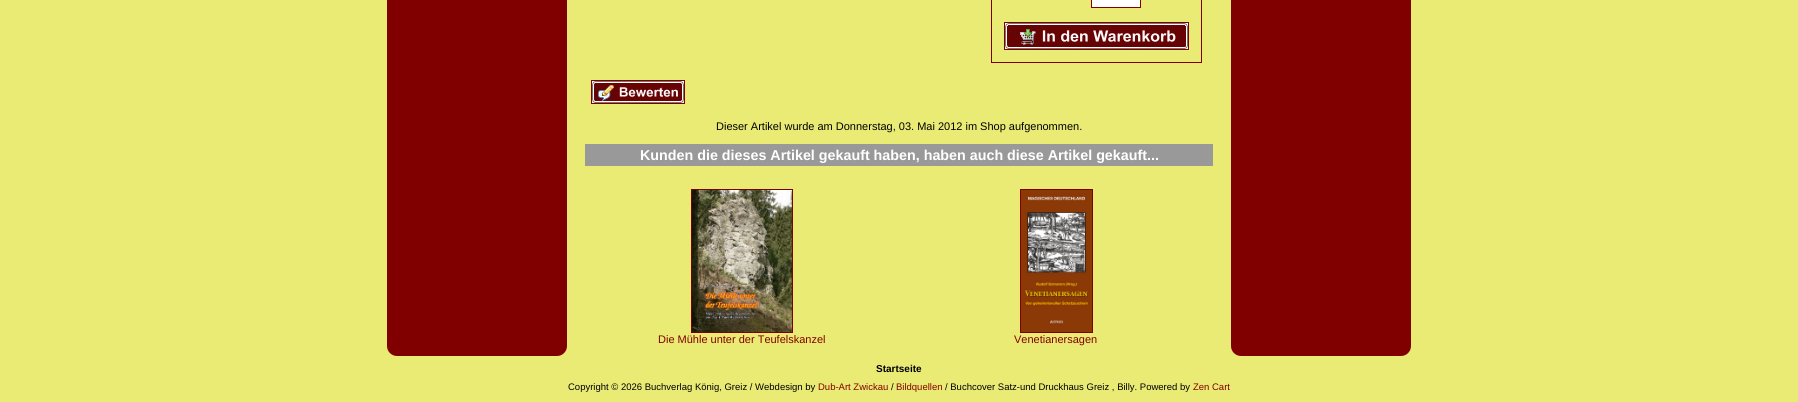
#include <cairo/cairo.h>
#include <math.h>
#include <stddef.h>

static cairo_t *cr;

static void rgb(unsigned color)
{
	cairo_set_source_rgb(cr, (color >> 16) / 255.0, (color >> 8 & 255) / 255.0, (color & 255) / 255.0);
}

static void rrect(double x, double y, double w, double h, double r)
{
	cairo_new_sub_path(cr);
	cairo_arc(cr, x + w - r, y + h - r, r, 0, M_PI / 2);
	cairo_arc(cr, x + r, y + h - r, r, M_PI / 2, M_PI);
	cairo_arc(cr, x + r, y + r, r, M_PI, 1.5 * M_PI);
	cairo_arc(cr, x + w - r, y + r, r, 1.5 * M_PI, 2 * M_PI);
	cairo_close_path(cr);
}

static void image(const char *path, double x, double y, double w, double h)
{
	cairo_surface_t *image = cairo_image_surface_create_from_png(path);
	cairo_save(cr);
	cairo_set_source_surface(cr, image, x, y);
	cairo_rectangle(cr, x, y, w, h);
	cairo_fill(cr);
	cairo_restore(cr);
	cairo_surface_destroy(image);
}

int main(void) {
	cairo_surface_t *surface = cairo_image_surface_create(CAIRO_FORMAT_RGB24, 1798, 402);
	cr = cairo_create(surface);
	cairo_font_options_t *options = cairo_font_options_create();
	cairo_font_options_set_hint_metrics(options, CAIRO_HINT_METRICS_OFF);
	cairo_font_options_set_hint_style(options, CAIRO_HINT_STYLE_NONE);
	cairo_set_font_options(cr, options);
	cairo_set_miter_limit(cr, 4);
	rgb(0xeaeb75);
	cairo_paint(cr);
	rgb(0x800000);
	rrect(387, -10, 180, 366, 10);
	cairo_fill(cr);
	cairo_rectangle(cr, 991.5, -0.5, 210, 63);
	cairo_set_line_width(cr, 1);
	cairo_stroke(cr);
	rgb(0xffffff);
	cairo_rectangle(cr, 1091.5, -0.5, 49, 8);
	cairo_fill_preserve(cr);
	rgb(0x800000);
	cairo_stroke(cr);
	cairo_rectangle(cr, 1004.5, 22.5, 184, 27);
	cairo_stroke(cr);
	image("img/1.png", 1005, 23, 183, 26);
	cairo_rectangle(cr, 591.5, 80.5, 93, 23);
	cairo_stroke(cr);
	image("img/2.png", 592, 81, 92, 22);
	rgb(0x999999);
	cairo_rectangle(cr, 585, 144, 628, 22);
	cairo_fill(cr);
	cairo_rectangle(cr, 691.5, 189.5, 101, 143);
	rgb(0x800000);
	cairo_stroke(cr);
	image("img/3.png", 692, 190, 100, 142);
	cairo_rectangle(cr, 1020.5, 189.5, 72, 143);
	cairo_stroke(cr);
	image("img/4.png", 1021, 190, 71, 142);
	rrect(1231, -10, 180, 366, 10);
	cairo_fill(cr);
	cairo_select_font_face(cr, "Liberation Sans", CAIRO_FONT_SLANT_NORMAL, CAIRO_FONT_WEIGHT_NORMAL);
	cairo_set_font_size(cr, 11);
	rgb(0x000000);
	cairo_move_to(cr, 716, 130);
	cairo_show_text(cr, "Dieser Artikel wurde am Donnerstag, 03. Mai 2012 im Shop aufgenommen.");
	cairo_select_font_face(cr, "Liberation Sans", CAIRO_FONT_SLANT_NORMAL, CAIRO_FONT_WEIGHT_BOLD);
	cairo_set_font_size(cr, 14.3);
	rgb(0xffffff);
	cairo_move_to(cr, 640, 160);
	cairo_show_text(cr, "Kunden die dieses Artikel gekauft haben, haben auch diese Artikel gekauft...");
	cairo_select_font_face(cr, "Liberation Sans", CAIRO_FONT_SLANT_NORMAL, CAIRO_FONT_WEIGHT_NORMAL);
	cairo_set_font_size(cr, 11);
	rgb(0x800000);
	cairo_move_to(cr, 658, 343);
	cairo_show_text(cr, "Die Mühle unter der Teufelskanzel");
	cairo_move_to(cr, 1014, 343);
	cairo_show_text(cr, "Venetianersagen");
	cairo_select_font_face(cr, "Liberation Sans", CAIRO_FONT_SLANT_NORMAL, CAIRO_FONT_WEIGHT_BOLD);
	cairo_set_font_size(cr, 10);
	rgb(0x000000);
	cairo_move_to(cr, 876, 372);
	cairo_show_text(cr, "Startseite");
	cairo_select_font_face(cr, "Liberation Sans", CAIRO_FONT_SLANT_NORMAL, CAIRO_FONT_WEIGHT_NORMAL);
	cairo_set_font_size(cr, 9.5);
	cairo_move_to(cr, 568, 390);
	cairo_show_text(cr, "Copyright © 2026 Buchverlag König, Greiz / Webdesign by");
	rgb(0x800000);
	cairo_move_to(cr, 818, 390);
	cairo_show_text(cr, "Dub-Art Zwickau");
	rgb(0x000000);
	cairo_move_to(cr, 891, 390);
	cairo_show_text(cr, "/");
	rgb(0x800000);
	cairo_move_to(cr, 896, 390);
	cairo_show_text(cr, "Bildquellen");
	rgb(0x000000);
	cairo_move_to(cr, 945, 390);
	cairo_show_text(cr, "/ Buchcover Satz-und Druckhaus Greiz , Billy. Powered by");
	rgb(0x800000);
	cairo_move_to(cr, 1193, 390);
	cairo_show_text(cr, "Zen Cart");
	cairo_surface_write_to_png(surface, "page.png");
	cairo_font_options_destroy(options);
	cairo_destroy(cr);
	cairo_surface_destroy(surface);
	return 0;
}
